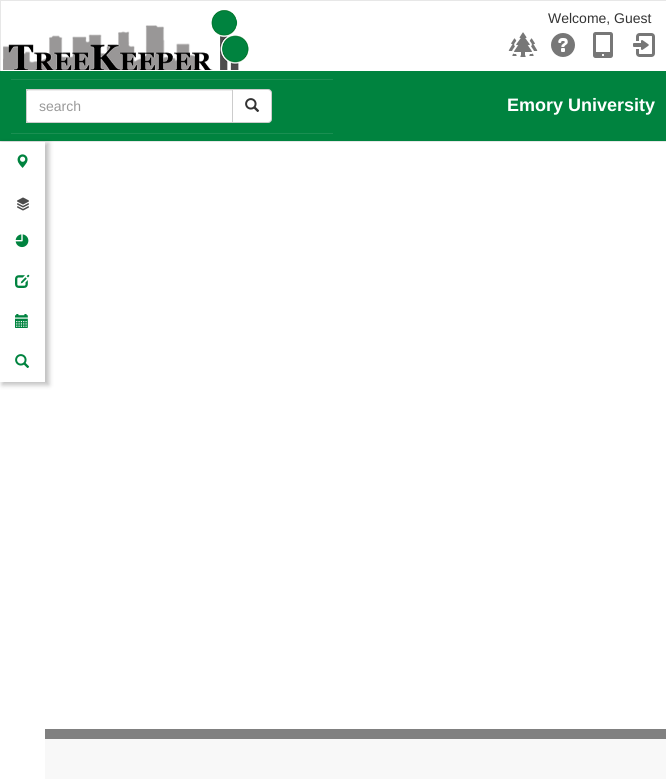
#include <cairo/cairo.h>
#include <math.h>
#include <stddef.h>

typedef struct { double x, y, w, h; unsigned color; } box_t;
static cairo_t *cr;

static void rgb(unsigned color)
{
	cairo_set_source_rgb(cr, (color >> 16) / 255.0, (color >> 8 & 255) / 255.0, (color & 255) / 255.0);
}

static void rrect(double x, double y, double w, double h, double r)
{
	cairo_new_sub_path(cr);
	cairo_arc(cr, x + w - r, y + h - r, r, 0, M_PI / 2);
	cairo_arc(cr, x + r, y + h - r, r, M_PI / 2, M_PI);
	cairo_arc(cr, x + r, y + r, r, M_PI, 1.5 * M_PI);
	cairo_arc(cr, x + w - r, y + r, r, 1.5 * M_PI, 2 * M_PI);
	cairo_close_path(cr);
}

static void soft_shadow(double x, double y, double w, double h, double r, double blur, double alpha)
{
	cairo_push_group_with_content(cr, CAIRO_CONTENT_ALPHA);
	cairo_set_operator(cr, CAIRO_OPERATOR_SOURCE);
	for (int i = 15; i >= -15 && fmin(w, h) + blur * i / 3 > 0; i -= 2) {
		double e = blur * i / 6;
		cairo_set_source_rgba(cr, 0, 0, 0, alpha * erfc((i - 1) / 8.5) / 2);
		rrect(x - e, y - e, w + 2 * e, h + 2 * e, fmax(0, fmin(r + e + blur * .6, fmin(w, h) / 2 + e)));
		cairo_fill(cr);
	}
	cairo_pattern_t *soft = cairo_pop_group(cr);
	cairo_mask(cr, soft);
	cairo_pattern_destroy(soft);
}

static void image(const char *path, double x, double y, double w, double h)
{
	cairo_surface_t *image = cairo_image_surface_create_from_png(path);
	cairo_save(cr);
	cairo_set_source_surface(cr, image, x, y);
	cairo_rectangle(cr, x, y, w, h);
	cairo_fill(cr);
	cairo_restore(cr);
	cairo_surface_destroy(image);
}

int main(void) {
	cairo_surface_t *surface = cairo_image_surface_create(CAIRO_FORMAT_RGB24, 666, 779);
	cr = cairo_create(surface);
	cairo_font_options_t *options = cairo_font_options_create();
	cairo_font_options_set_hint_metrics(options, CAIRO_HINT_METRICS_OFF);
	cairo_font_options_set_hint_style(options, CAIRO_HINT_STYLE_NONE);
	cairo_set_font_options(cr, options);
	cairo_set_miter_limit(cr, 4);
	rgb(0xffffff);
	cairo_paint(cr);
	cairo_rectangle(cr, 0.5, 0.5, 665, 141);
	rgb(0xe7e7e7);
	cairo_set_line_width(cr, 1);
	cairo_stroke(cr);
	rgb(0xffffff);
	cairo_rectangle(cr, 665, 1, 1, 70);
	cairo_fill(cr);
	image("img/1.png", 3, 10, 246, 60);
	image("img/2.png", 508, 32, 30, 25);
	image("img/3.png", 551, 33, 24, 24);
	image("img/4.png", 593, 32, 20, 26);
	image("img/5.png", 633, 33, 22, 24);
	{
		static const box_t items[] = {
			{0, 71, 666, 70, 0x00833f},
			{11, 133, 322, 1, 0x1a8f52},
			{11, 79, 322, 1, 0x1a8f52},
		};
		for (size_t i = 0; i < sizeof items / sizeof *items; i++) {
			rgb(items[i].color);
			cairo_rectangle(cr, items[i].x, items[i].y, items[i].w, items[i].h);
			cairo_fill(cr);
		}
	}
	rgb(0xffffff);
	cairo_new_path(cr);
	cairo_move_to(cr, 232.5, 89.5);
	cairo_line_to(cr, 268, 89.5);
	cairo_curve_to(cr, 270, 89.5, 271.5, 91, 271.5, 93);
	cairo_line_to(cr, 271.5, 119);
	cairo_curve_to(cr, 271.5, 121, 270, 122.5, 268, 122.5);
	cairo_line_to(cr, 232.5, 122.5);
	cairo_close_path(cr);
	cairo_fill_preserve(cr);
	rgb(0xcccccc);
	cairo_stroke(cr);
	rgb(0xffffff);
	cairo_new_path(cr);
	cairo_move_to(cr, 30, 89);
	cairo_line_to(cr, 233, 89);
	cairo_line_to(cr, 233, 123);
	cairo_line_to(cr, 30, 123);
	cairo_curve_to(cr, 28, 123, 26, 121, 26, 119);
	cairo_line_to(cr, 26, 93);
	cairo_curve_to(cr, 26, 91, 28, 89, 30, 89);
	cairo_close_path(cr);
	cairo_fill(cr);
	cairo_set_source_rgba(cr, 0, 0, 0, 0.07);
	cairo_rectangle(cr, 27, 90, 205, 1);
	cairo_fill(cr);
	cairo_rectangle(cr, 26.5, 89.5, 206, 33);
	rgb(0xcccccc);
	cairo_stroke(cr);
	image("img/6.png", 245, 98, 15, 14);
	cairo_save(cr);
	cairo_set_fill_rule(cr, CAIRO_FILL_RULE_EVEN_ODD);
	cairo_new_path(cr);
	cairo_move_to(cr, 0, 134);
	cairo_line_to(cr, 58, 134);
	cairo_line_to(cr, 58, 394);
	cairo_line_to(cr, 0, 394);
	cairo_close_path(cr);
	cairo_move_to(cr, 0, 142);
	cairo_line_to(cr, 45, 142);
	cairo_line_to(cr, 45, 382);
	cairo_line_to(cr, 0, 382);
	cairo_close_path(cr);
	cairo_clip(cr);
	rgb(0x000000);
	soft_shadow(2, 143, 47, 242, 0, 2.5, 0.25);
	cairo_restore(cr);
	image("img/7.png", 17, 154, 11, 14);
	image("img/8.png", 17, 197, 12, 14);
	image("img/9.png", 15, 234, 14, 14);
	image("img/10.png", 15, 274, 15, 14);
	image("img/11.png", 15, 314, 13, 14);
	image("img/12.png", 15, 354, 15, 14);
	rgb(0xf8f8f8);
	cairo_rectangle(cr, 45, 739, 621, 40);
	cairo_fill(cr);
	rgb(0x808080);
	cairo_rectangle(cr, 45, 729, 621, 10);
	cairo_fill(cr);
	cairo_select_font_face(cr, "Liberation Sans", CAIRO_FONT_SLANT_NORMAL, CAIRO_FONT_WEIGHT_NORMAL);
	cairo_set_font_size(cr, 14);
	rgb(0x333333);
	cairo_move_to(cr, 548, 23);
	cairo_show_text(cr, "Welcome, Guest");
	rgb(0x999999);
	cairo_move_to(cr, 39, 111);
	cairo_show_text(cr, "search");
	cairo_select_font_face(cr, "Liberation Sans", CAIRO_FONT_SLANT_NORMAL, CAIRO_FONT_WEIGHT_BOLD);
	cairo_set_font_size(cr, 18);
	rgb(0xffffff);
	cairo_move_to(cr, 507, 111);
	cairo_show_text(cr, "Emory University");
	cairo_surface_write_to_png(surface, "page.png");
	cairo_font_options_destroy(options);
	cairo_destroy(cr);
	cairo_surface_destroy(surface);
	return 0;
}
